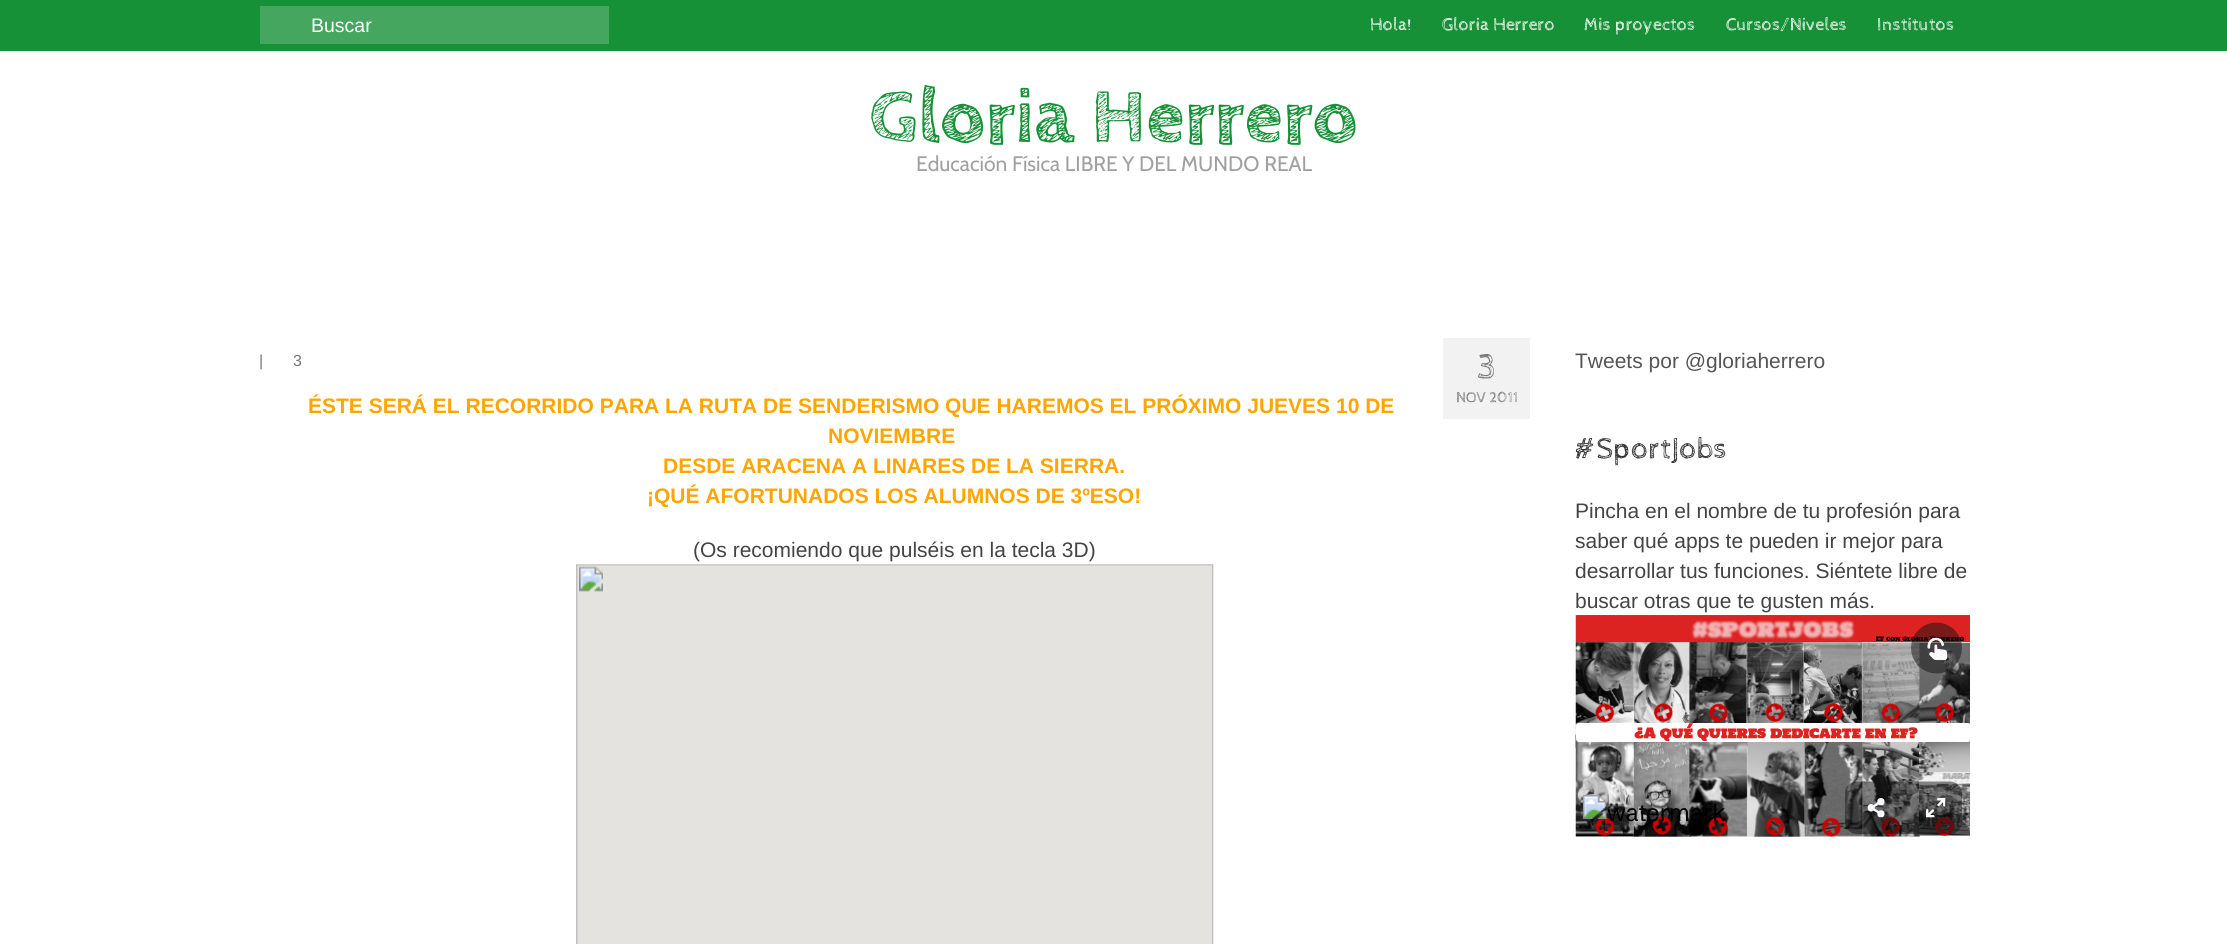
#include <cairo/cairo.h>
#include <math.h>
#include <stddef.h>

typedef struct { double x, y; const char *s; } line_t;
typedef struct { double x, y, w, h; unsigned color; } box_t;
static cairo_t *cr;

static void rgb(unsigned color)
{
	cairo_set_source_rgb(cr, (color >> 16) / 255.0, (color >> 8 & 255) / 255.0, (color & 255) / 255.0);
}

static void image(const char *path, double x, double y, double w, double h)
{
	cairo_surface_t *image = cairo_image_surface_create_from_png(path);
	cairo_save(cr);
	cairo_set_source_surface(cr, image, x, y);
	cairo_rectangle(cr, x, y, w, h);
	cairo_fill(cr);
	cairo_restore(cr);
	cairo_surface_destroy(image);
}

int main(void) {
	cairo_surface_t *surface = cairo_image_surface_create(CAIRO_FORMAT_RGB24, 2227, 944);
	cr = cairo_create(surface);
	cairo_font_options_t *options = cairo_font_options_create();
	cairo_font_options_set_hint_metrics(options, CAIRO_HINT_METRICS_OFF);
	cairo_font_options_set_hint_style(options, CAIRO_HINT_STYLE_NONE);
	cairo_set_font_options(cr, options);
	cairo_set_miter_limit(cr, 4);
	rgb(0xffffff);
	cairo_paint(cr);
	{
		static const box_t items[] = {
			{0, 0, 2227, 51, 0x179137},
			{260, 6, 349, 38, 0x45a75f},
			{1443, 338, 87, 81, 0xf2f2f2},
		};
		for (size_t i = 0; i < sizeof items / sizeof *items; i++) {
			rgb(items[i].color);
			cairo_rectangle(cr, items[i].x, items[i].y, items[i].w, items[i].h);
			cairo_fill(cr);
		}
	}
	image("img/1.png", 576, 564, 638, 380);
	image("img/2.png", 1575, 615, 395, 222);
	cairo_select_font_face(cr, "Liberation Sans", CAIRO_FONT_SLANT_NORMAL, CAIRO_FONT_WEIGHT_NORMAL);
	cairo_set_font_size(cr, 19.5);
	rgb(0xffffff);
	cairo_move_to(cr, 311, 32);
	cairo_show_text(cr, "Buscar");
	cairo_select_font_face(cr, "Cabin Sketch", CAIRO_FONT_SLANT_NORMAL, CAIRO_FONT_WEIGHT_NORMAL);
	cairo_set_font_size(cr, 18);
	{
		static const line_t items[] = {
			{1370, 30, "Hola!"},
			{1442, 30, "Gloria Herrero"},
			{1584, 30, "Mis proyectos"},
			{1726, 30, "Cursos/Niveles"},
			{1877, 30, "Institutos"},
		};
		for (size_t i = 0; i < sizeof items / sizeof *items; i++) {
			cairo_move_to(cr, items[i].x, items[i].y);
			cairo_show_text(cr, items[i].s);
		}
	}
	cairo_select_font_face(cr, "Cabin Sketch", CAIRO_FONT_SLANT_NORMAL, CAIRO_FONT_WEIGHT_BOLD);
	cairo_set_font_size(cr, 78);
	rgb(0x179137);
	cairo_move_to(cr, 869, 141);
	cairo_show_text(cr, "Gloria Herrero");
	cairo_select_font_face(cr, "Cabin", CAIRO_FONT_SLANT_NORMAL, CAIRO_FONT_WEIGHT_NORMAL);
	cairo_set_font_size(cr, 21);
	rgb(0xa0a0a0);
	cairo_move_to(cr, 916, 171);
	cairo_show_text(cr, "Educación Física LIBRE Y DEL MUNDO REAL");
	cairo_select_font_face(cr, "Liberation Sans", CAIRO_FONT_SLANT_NORMAL, CAIRO_FONT_WEIGHT_NORMAL);
	cairo_set_font_size(cr, 16);
	rgb(0x777777);
	cairo_move_to(cr, 259, 366);
	cairo_show_text(cr, "|");
	cairo_move_to(cr, 293, 366);
	cairo_show_text(cr, "3");
	cairo_select_font_face(cr, "Cabin Sketch", CAIRO_FONT_SLANT_NORMAL, CAIRO_FONT_WEIGHT_NORMAL);
	cairo_set_font_size(cr, 36);
	cairo_move_to(cr, 1477, 378);
	cairo_show_text(cr, "3");
	cairo_set_font_size(cr, 15);
	cairo_move_to(cr, 1456, 402);
	cairo_show_text(cr, "NOV 2011");
	cairo_select_font_face(cr, "Liberation Sans", CAIRO_FONT_SLANT_NORMAL, CAIRO_FONT_WEIGHT_BOLD);
	cairo_set_font_size(cr, 21);
	rgb(0xffa500);
	{
		static const line_t items[] = {
			{308, 413, "ÉSTE SERÁ EL RECORRIDO PARA LA RUTA DE SENDERISMO QUE HAREMOS EL PRÓXIMO JUEVES 10 DE"},
			{828, 443, "NOVIEMBRE"},
			{663, 473, "DESDE ARACENA A LINARES DE LA SIERRA."},
			{647, 503, "¡QUÉ AFORTUNADOS LOS ALUMNOS DE 3ºESO!"},
		};
		for (size_t i = 0; i < sizeof items / sizeof *items; i++) {
			cairo_move_to(cr, items[i].x, items[i].y);
			cairo_show_text(cr, items[i].s);
		}
	}
	cairo_select_font_face(cr, "Liberation Sans", CAIRO_FONT_SLANT_NORMAL, CAIRO_FONT_WEIGHT_NORMAL);
	rgb(0x444444);
	cairo_move_to(cr, 693, 557);
	cairo_show_text(cr, "(Os recomiendo que pulséis en la tecla 3D)");
	rgb(0x555555);
	cairo_move_to(cr, 1575, 368);
	cairo_show_text(cr, "Tweets por @gloriaherrero");
	cairo_select_font_face(cr, "Cabin Sketch", CAIRO_FONT_SLANT_NORMAL, CAIRO_FONT_WEIGHT_NORMAL);
	cairo_set_font_size(cr, 30);
	rgb(0x333333);
	cairo_move_to(cr, 1575, 458);
	cairo_show_text(cr, "#SportJobs");
	cairo_select_font_face(cr, "Liberation Sans", CAIRO_FONT_SLANT_NORMAL, CAIRO_FONT_WEIGHT_NORMAL);
	cairo_set_font_size(cr, 21);
	rgb(0x444444);
	{
		static const line_t items[] = {
			{1575, 518, "Pincha en el nombre de tu profesión para"},
			{1575, 548, "saber qué apps te pueden ir mejor para"},
			{1575, 578, "desarrollar tus funciones. Siéntete libre de"},
			{1575, 608, "buscar otras que te gusten más."},
		};
		for (size_t i = 0; i < sizeof items / sizeof *items; i++) {
			cairo_move_to(cr, items[i].x, items[i].y);
			cairo_show_text(cr, items[i].s);
		}
	}
	cairo_surface_write_to_png(surface, "page.png");
	cairo_font_options_destroy(options);
	cairo_destroy(cr);
	cairo_surface_destroy(surface);
	return 0;
}
